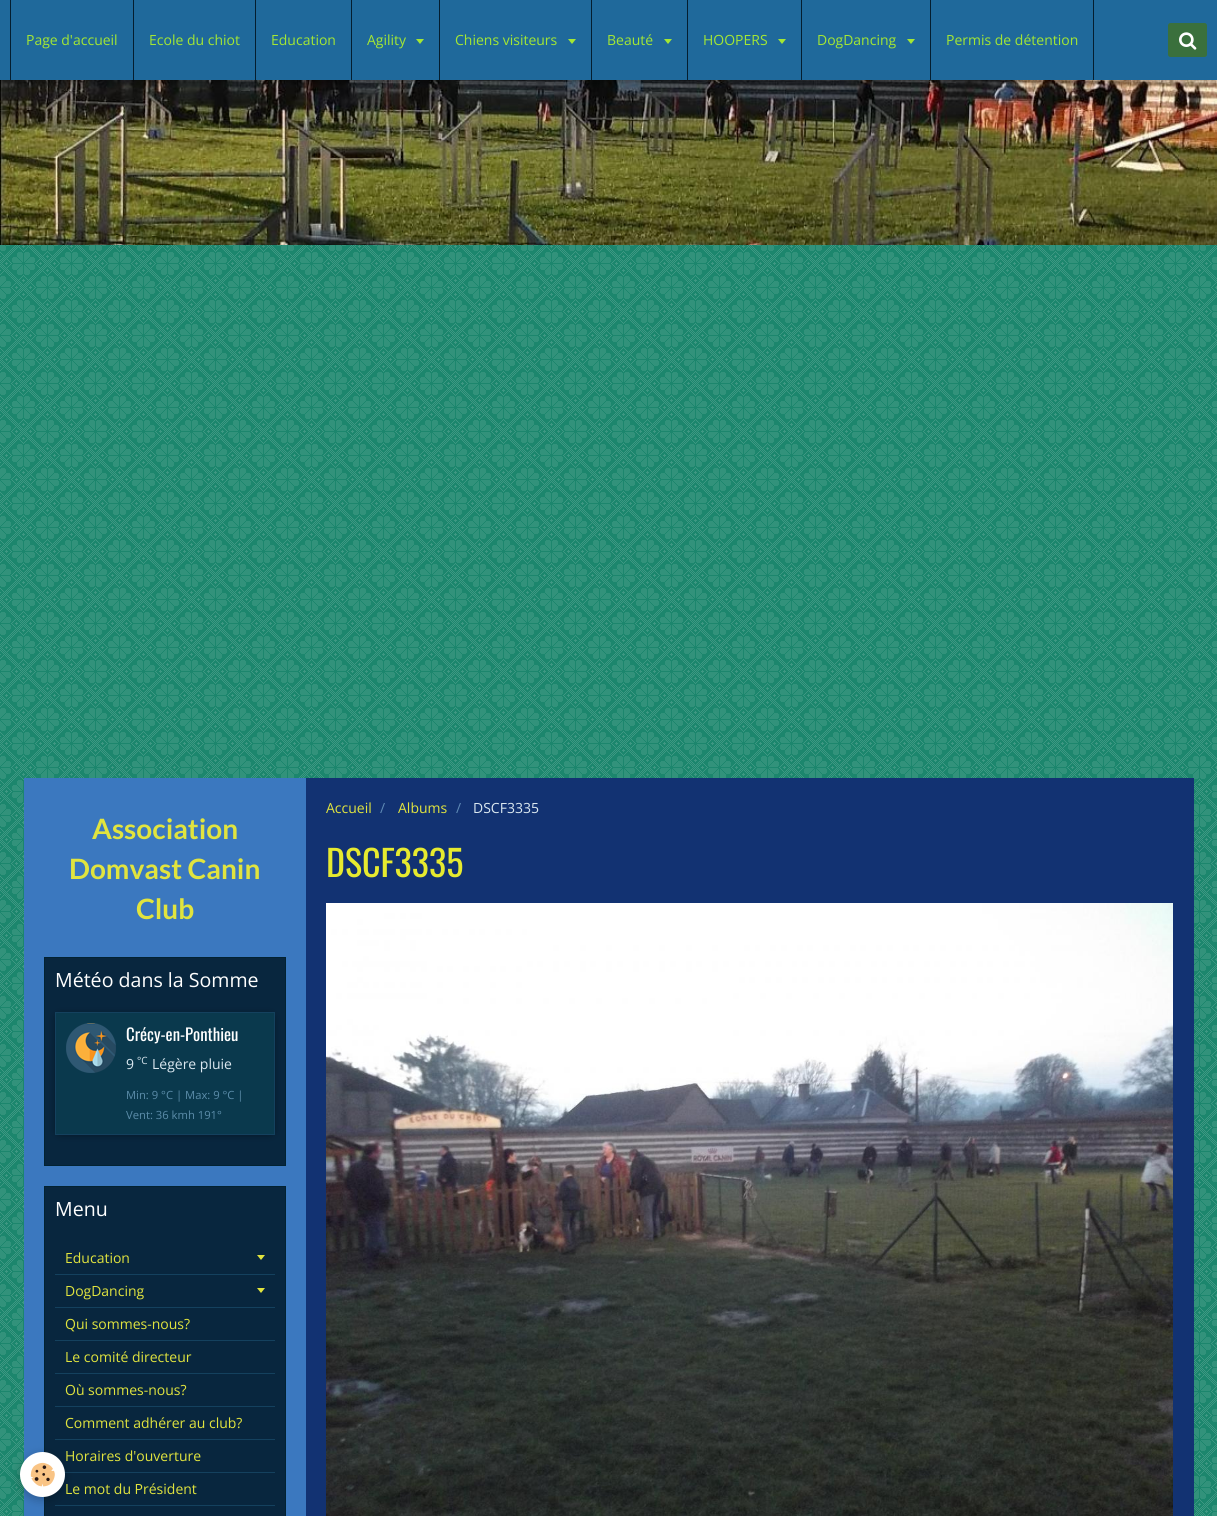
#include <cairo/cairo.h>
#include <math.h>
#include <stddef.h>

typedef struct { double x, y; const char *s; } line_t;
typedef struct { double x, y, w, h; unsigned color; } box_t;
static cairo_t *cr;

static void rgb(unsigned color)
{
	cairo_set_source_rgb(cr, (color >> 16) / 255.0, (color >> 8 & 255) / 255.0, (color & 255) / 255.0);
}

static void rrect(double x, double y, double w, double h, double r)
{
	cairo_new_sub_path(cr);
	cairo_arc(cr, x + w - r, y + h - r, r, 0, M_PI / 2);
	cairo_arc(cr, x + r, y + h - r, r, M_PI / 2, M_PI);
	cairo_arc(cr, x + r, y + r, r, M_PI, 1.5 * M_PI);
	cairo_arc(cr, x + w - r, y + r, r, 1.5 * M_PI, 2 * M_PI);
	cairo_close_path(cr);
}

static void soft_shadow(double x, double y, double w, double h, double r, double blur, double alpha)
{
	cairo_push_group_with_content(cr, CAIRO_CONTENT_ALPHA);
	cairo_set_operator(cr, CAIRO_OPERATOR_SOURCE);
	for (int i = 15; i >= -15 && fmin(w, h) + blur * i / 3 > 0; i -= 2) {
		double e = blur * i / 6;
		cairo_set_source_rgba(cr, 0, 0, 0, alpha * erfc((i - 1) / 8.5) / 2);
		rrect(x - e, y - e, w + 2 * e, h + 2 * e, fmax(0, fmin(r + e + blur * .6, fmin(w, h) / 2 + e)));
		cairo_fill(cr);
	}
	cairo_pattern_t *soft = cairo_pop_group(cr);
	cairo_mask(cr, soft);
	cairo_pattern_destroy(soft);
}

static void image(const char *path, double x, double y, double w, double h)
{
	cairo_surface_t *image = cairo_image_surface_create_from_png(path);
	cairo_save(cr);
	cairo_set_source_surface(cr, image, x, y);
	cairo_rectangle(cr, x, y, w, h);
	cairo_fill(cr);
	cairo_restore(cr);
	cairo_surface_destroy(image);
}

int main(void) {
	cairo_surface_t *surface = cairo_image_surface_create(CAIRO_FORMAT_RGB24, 1217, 1516);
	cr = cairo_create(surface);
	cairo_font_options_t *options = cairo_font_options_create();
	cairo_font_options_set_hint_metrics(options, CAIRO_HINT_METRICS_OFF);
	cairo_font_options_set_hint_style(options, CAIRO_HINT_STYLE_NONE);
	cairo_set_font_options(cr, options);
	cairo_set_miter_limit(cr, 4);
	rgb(0x1c866d);
	cairo_paint(cr);
	image("img/1.png", 0, 245, 1217, 1271);
	image("img/3.png", 0, 80, 1217, 165);
	rgb(0x000000);
	soft_shadow(0, 2, 1217, 80, 0, 2.5, 0.3);
	{
		static const box_t items[] = {
			{0, 0, 1217, 80, 0x1f699b},
			{133, 0, 1, 80, 0x041e2f},
			{10, 0, 1, 80, 0x041e2f},
			{255, 0, 1, 80, 0x041e2f},
			{351, 0, 1, 80, 0x041e2f},
			{439, 0, 1, 80, 0x041e2f},
		};
		for (size_t i = 0; i < sizeof items / sizeof *items; i++) {
			rgb(items[i].color);
			cairo_rectangle(cr, items[i].x, items[i].y, items[i].w, items[i].h);
			cairo_fill(cr);
		}
	}
	rgb(0xa4e733);
	cairo_new_path(cr);
	cairo_move_to(cr, 416, 39);
	cairo_line_to(cr, 424, 39);
	cairo_line_to(cr, 420, 44);
	cairo_close_path(cr);
	cairo_fill(cr);
	rgb(0x041e2f);
	cairo_rectangle(cr, 591, 0, 1, 80);
	cairo_fill(cr);
	rgb(0xa4e733);
	cairo_new_path(cr);
	cairo_move_to(cr, 568, 39);
	cairo_line_to(cr, 576, 39);
	cairo_line_to(cr, 572, 44);
	cairo_close_path(cr);
	cairo_fill(cr);
	rgb(0x041e2f);
	cairo_rectangle(cr, 687, 0, 1, 80);
	cairo_fill(cr);
	rgb(0xa4e733);
	cairo_new_path(cr);
	cairo_move_to(cr, 664, 39);
	cairo_line_to(cr, 672, 39);
	cairo_line_to(cr, 668, 44);
	cairo_close_path(cr);
	cairo_fill(cr);
	rgb(0x041e2f);
	cairo_rectangle(cr, 801, 0, 1, 80);
	cairo_fill(cr);
	rgb(0xa4e733);
	cairo_new_path(cr);
	cairo_move_to(cr, 778, 39);
	cairo_line_to(cr, 786, 39);
	cairo_line_to(cr, 782, 44);
	cairo_close_path(cr);
	cairo_fill(cr);
	rgb(0x041e2f);
	cairo_rectangle(cr, 930, 0, 1, 80);
	cairo_fill(cr);
	rgb(0xa4e733);
	cairo_new_path(cr);
	cairo_move_to(cr, 907, 39);
	cairo_line_to(cr, 915, 39);
	cairo_line_to(cr, 911, 44);
	cairo_close_path(cr);
	cairo_fill(cr);
	rgb(0x041e2f);
	cairo_rectangle(cr, 1093, 0, 1, 80);
	cairo_fill(cr);
	rgb(0x3a703c);
	rrect(1168, 23, 39, 34, 2.5);
	cairo_fill(cr);
	image("img/2.png", 1179, 32, 18, 18);
	rgb(0x3b78bf);
	cairo_rectangle(cr, 24, 778, 282, 738);
	cairo_fill(cr);
	rgb(0x08263e);
	cairo_rectangle(cr, 44.5, 1186.5, 241, 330);
	cairo_fill_preserve(cr);
	rgb(0x022231);
	cairo_set_line_width(cr, 1);
	cairo_stroke(cr);
	{
		static const box_t items[] = {
			{55, 1439, 220, 1, 0x14415e},
			{64, 1472, 211, 1, 0x14415e},
			{55, 1505, 220, 1, 0x14415e},
		};
		for (size_t i = 0; i < sizeof items / sizeof *items; i++) {
			rgb(items[i].color);
			cairo_rectangle(cr, items[i].x, items[i].y, items[i].w, items[i].h);
			cairo_fill(cr);
		}
	}
	rgb(0x000000);
	soft_shadow(20, 1455, 45, 45, 22.5, 5, 0.24);
	rgb(0xffffff);
	cairo_arc(cr, 42.5, 1474.5, 22.5, 0, 2 * M_PI);
	cairo_fill(cr);
	image("img/4.png", 30, 1462, 25, 25);
	rgb(0x08263e);
	cairo_rectangle(cr, 44.5, 957.5, 241, 208);
	cairo_fill_preserve(cr);
	rgb(0x022231);
	cairo_stroke(cr);
	rgb(0x000000);
	soft_shadow(60, 1018, 210, 113, 0, 5, 1);
	rgb(0x0a394d);
	cairo_rectangle(cr, 55.5, 1012.5, 219, 122);
	cairo_fill_preserve(cr);
	rgb(0x14415e);
	cairo_stroke(cr);
	image("img/5.png", 66, 1023, 50, 50);
	cairo_rectangle(cr, 55, 1274, 220, 1);
	cairo_fill(cr);
	rgb(0xe1e43e);
	cairo_new_path(cr);
	cairo_move_to(cr, 257, 1255);
	cairo_line_to(cr, 265, 1255);
	cairo_line_to(cr, 261, 1260);
	cairo_close_path(cr);
	cairo_fill(cr);
	rgb(0x14415e);
	cairo_rectangle(cr, 55, 1307, 220, 1);
	cairo_fill(cr);
	rgb(0xe1e43e);
	cairo_new_path(cr);
	cairo_move_to(cr, 257, 1288);
	cairo_line_to(cr, 265, 1288);
	cairo_line_to(cr, 261, 1293);
	cairo_close_path(cr);
	cairo_fill(cr);
	{
		static const box_t items[] = {
			{55, 1340, 220, 1, 0x14415e},
			{55, 1373, 220, 1, 0x14415e},
			{55, 1406, 220, 1, 0x14415e},
			{306, 778, 888, 738, 0x123272},
		};
		for (size_t i = 0; i < sizeof items / sizeof *items; i++) {
			rgb(items[i].color);
			cairo_rectangle(cr, items[i].x, items[i].y, items[i].w, items[i].h);
			cairo_fill(cr);
		}
	}
	image("img/6.png", 326, 903, 847, 613);
	cairo_select_font_face(cr, "Open Sans", CAIRO_FONT_SLANT_NORMAL, CAIRO_FONT_WEIGHT_NORMAL);
	cairo_set_font_size(cr, 14);
	rgb(0xa4e733);
	{
		static const line_t items[] = {
			{26, 45, "Page d'accueil"},
			{149, 45, "Ecole du chiot"},
			{271, 45, "Education"},
			{367, 45, "Agility"},
			{455, 45, "Chiens visiteurs"},
			{607, 45, "Beauté"},
			{703, 45, "HOOPERS"},
			{817, 45, "DogDancing"},
			{946, 45, "Permis de détention"},
		};
		for (size_t i = 0; i < sizeof items / sizeof *items; i++) {
			cairo_move_to(cr, items[i].x, items[i].y);
			cairo_show_text(cr, items[i].s);
		}
	}
	cairo_select_font_face(cr, "Lato", CAIRO_FONT_SLANT_NORMAL, CAIRO_FONT_WEIGHT_BOLD);
	cairo_set_font_size(cr, 28);
	rgb(0xe1e43e);
	{
		static const line_t items[] = {
			{92, 839, "Association"},
			{69, 879, "Domvast Canin"},
			{136, 919, "Club"},
		};
		for (size_t i = 0; i < sizeof items / sizeof *items; i++) {
			cairo_move_to(cr, items[i].x, items[i].y);
			cairo_show_text(cr, items[i].s);
		}
	}
	cairo_select_font_face(cr, "Open Sans", CAIRO_FONT_SLANT_NORMAL, CAIRO_FONT_WEIGHT_NORMAL);
	cairo_set_font_size(cr, 19.6);
	rgb(0xffffff);
	cairo_move_to(cr, 55, 987);
	cairo_show_text(cr, "Météo dans la Somme");
	cairo_select_font_face(cr, "Oswald", CAIRO_FONT_SLANT_NORMAL, CAIRO_FONT_WEIGHT_NORMAL);
	cairo_set_font_size(cr, 16.75);
	cairo_move_to(cr, 126, 1041);
	cairo_show_text(cr, "Crécy-en-Ponthieu");
	cairo_select_font_face(cr, "Open Sans", CAIRO_FONT_SLANT_NORMAL, CAIRO_FONT_WEIGHT_NORMAL);
	cairo_set_font_size(cr, 14);
	rgb(0xdbe8f0);
	cairo_move_to(cr, 126, 1069);
	cairo_show_text(cr, "9");
	cairo_set_font_size(cr, 10);
	cairo_move_to(cr, 137, 1064);
	cairo_show_text(cr, "°C");
	cairo_set_font_size(cr, 14);
	cairo_move_to(cr, 152, 1069);
	cairo_show_text(cr, "Légère pluie");
	cairo_set_font_size(cr, 11.25);
	rgb(0x5b8ca9);
	cairo_move_to(cr, 126, 1099);
	cairo_show_text(cr, "Min: 9 °C | Max: 9 °C |");
	cairo_move_to(cr, 126, 1119);
	cairo_show_text(cr, "Vent: 36 kmh 191°");
	cairo_set_font_size(cr, 19.6);
	rgb(0xffffff);
	cairo_move_to(cr, 55, 1216);
	cairo_show_text(cr, "Menu");
	cairo_set_font_size(cr, 14);
	rgb(0xe1e43e);
	{
		static const line_t items[] = {
			{65, 1263, "Education"},
			{65, 1296, "DogDancing"},
			{65, 1329, "Qui sommes-nous?"},
			{65, 1362, "Le comité directeur"},
			{65, 1395, "Où sommes-nous?"},
			{65, 1428, "Comment adhérer au club?"},
			{65, 1461, "Horaires d'ouverture"},
			{65, 1494, "Le mot du Président"},
			{326, 813, "Accueil"},
		};
		for (size_t i = 0; i < sizeof items / sizeof *items; i++) {
			cairo_move_to(cr, items[i].x, items[i].y);
			cairo_show_text(cr, items[i].s);
		}
	}
	rgb(0x5e8ab5);
	cairo_move_to(cr, 380, 813);
	cairo_show_text(cr, "/");
	rgb(0xe1e43e);
	cairo_move_to(cr, 398, 813);
	cairo_show_text(cr, "Albums");
	rgb(0x5e8ab5);
	cairo_move_to(cr, 456, 813);
	cairo_show_text(cr, "/");
	rgb(0xdbe8f0);
	cairo_move_to(cr, 473, 813);
	cairo_show_text(cr, "DSCF3335");
	cairo_select_font_face(cr, "Oswald", CAIRO_FONT_SLANT_NORMAL, CAIRO_FONT_WEIGHT_NORMAL);
	cairo_set_font_size(cr, 36);
	rgb(0xe6ea2f);
	cairo_move_to(cr, 326, 877);
	cairo_show_text(cr, "DSCF3335");
	cairo_surface_write_to_png(surface, "page.png");
	cairo_font_options_destroy(options);
	cairo_destroy(cr);
	cairo_surface_destroy(surface);
	return 0;
}
